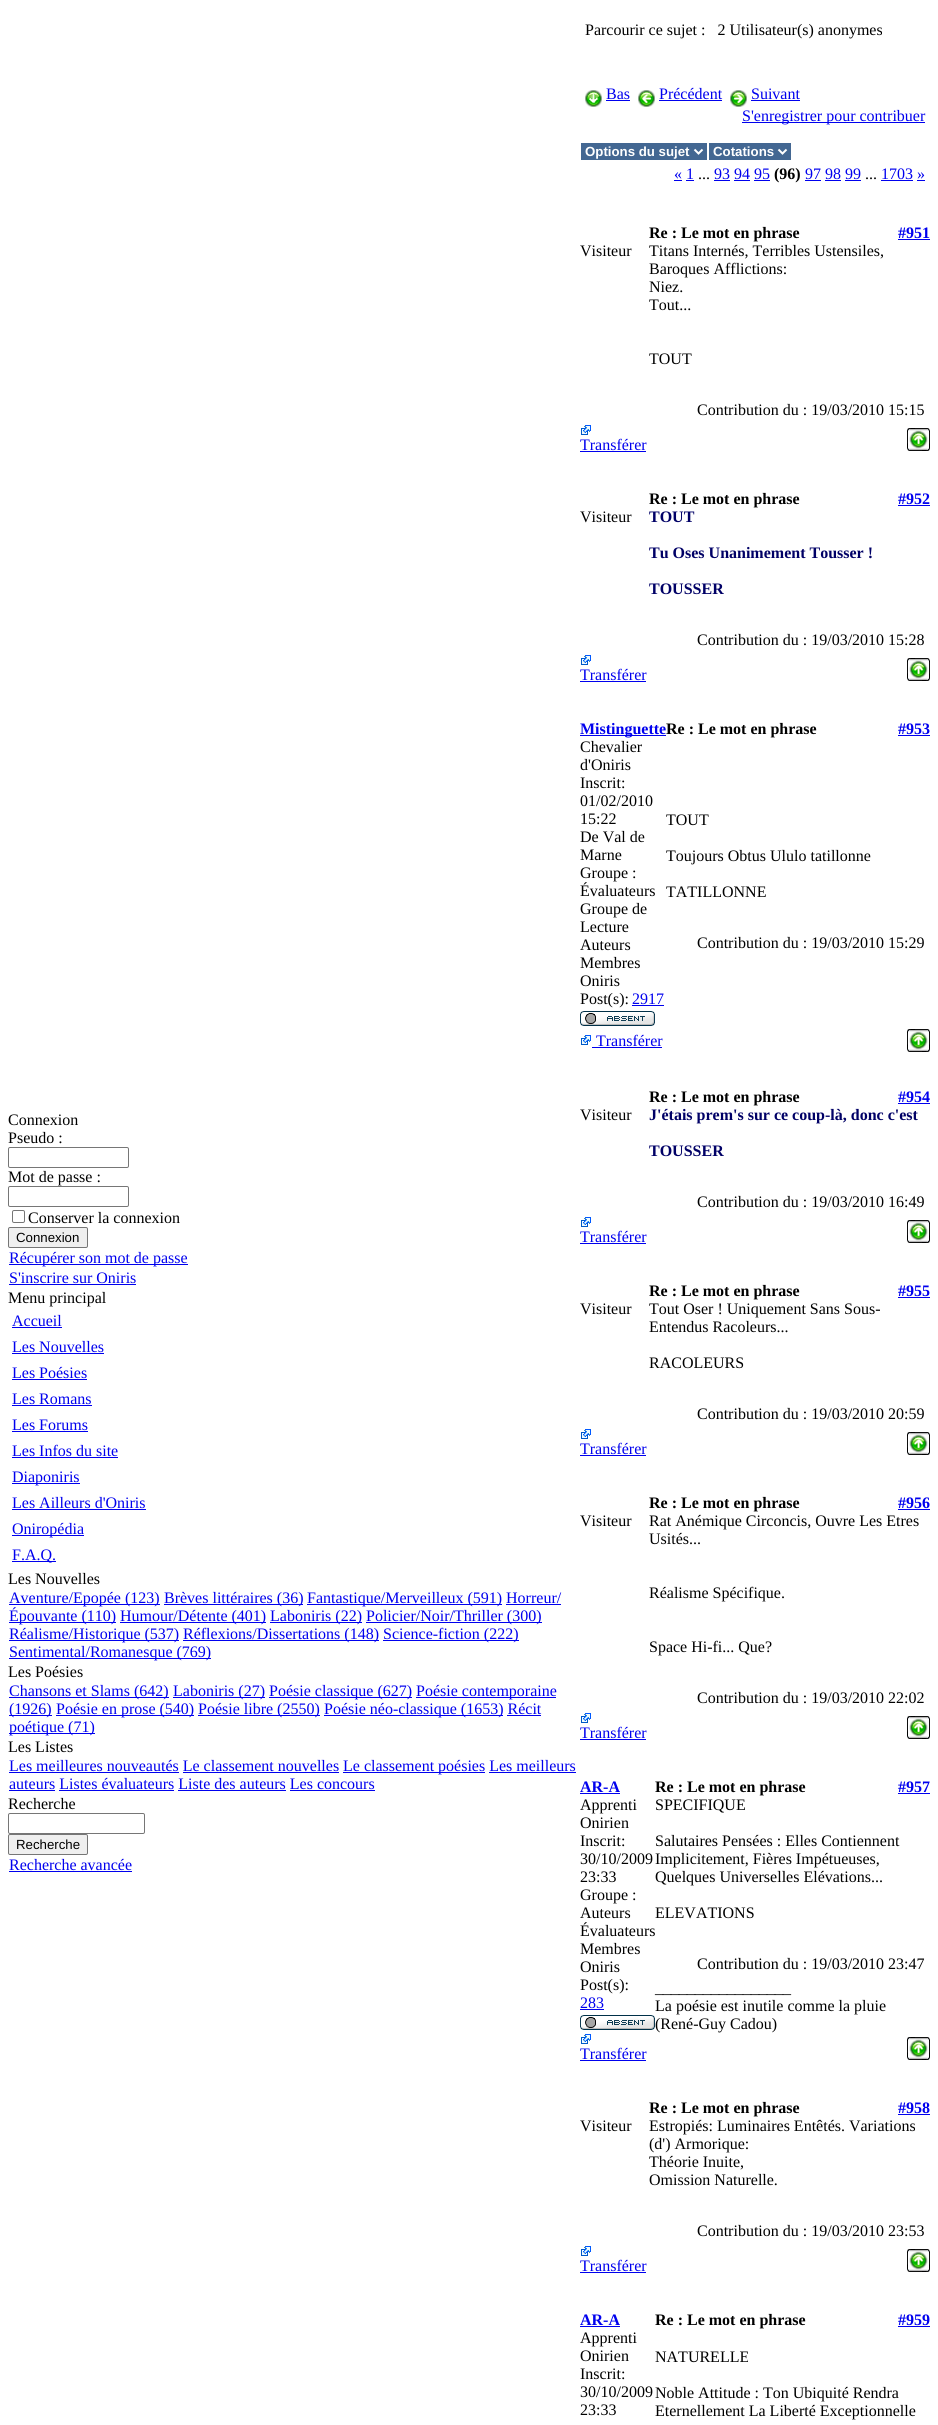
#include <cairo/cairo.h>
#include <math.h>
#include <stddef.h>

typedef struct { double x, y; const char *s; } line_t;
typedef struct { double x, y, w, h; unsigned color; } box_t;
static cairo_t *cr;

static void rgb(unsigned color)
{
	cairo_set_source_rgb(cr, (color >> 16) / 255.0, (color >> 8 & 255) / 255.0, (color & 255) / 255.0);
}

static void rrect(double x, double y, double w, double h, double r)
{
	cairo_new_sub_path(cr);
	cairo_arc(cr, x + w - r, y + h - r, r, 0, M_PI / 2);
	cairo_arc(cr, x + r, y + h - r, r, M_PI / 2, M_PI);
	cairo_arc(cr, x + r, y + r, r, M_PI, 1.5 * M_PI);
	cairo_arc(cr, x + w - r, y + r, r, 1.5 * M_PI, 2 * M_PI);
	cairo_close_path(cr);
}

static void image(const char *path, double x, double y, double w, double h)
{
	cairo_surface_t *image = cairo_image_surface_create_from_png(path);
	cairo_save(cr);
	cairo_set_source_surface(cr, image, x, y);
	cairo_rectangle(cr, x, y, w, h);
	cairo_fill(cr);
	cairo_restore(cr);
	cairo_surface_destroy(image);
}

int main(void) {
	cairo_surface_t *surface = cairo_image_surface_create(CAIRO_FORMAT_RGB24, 938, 2425);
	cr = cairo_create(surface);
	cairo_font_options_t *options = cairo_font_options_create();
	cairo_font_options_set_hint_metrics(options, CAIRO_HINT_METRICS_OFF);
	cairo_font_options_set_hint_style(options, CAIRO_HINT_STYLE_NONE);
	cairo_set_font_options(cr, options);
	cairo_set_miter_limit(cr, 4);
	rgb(0xffffff);
	cairo_paint(cr);
	rrect(8.5, 1147.5, 120, 20, 1.5);
	rgb(0x767676);
	cairo_set_line_width(cr, 1);
	cairo_stroke(cr);
	rrect(8.5, 1186.5, 120, 20, 1.5);
	cairo_stroke(cr);
	rrect(12.5, 1210.5, 12, 12, 1.5);
	cairo_stroke(cr);
	rgb(0xefefef);
	rrect(8.5, 1227.5, 79, 20, 1.5);
	cairo_fill_preserve(cr);
	rgb(0x767676);
	cairo_stroke(cr);
	{
		static const box_t items[] = {
			{9, 1264, 179, 1, 0x0000ee},
			{9, 1284, 127, 1, 0x0000ee},
			{12, 1327, 50, 1, 0x0000ee},
			{12, 1353, 92, 1, 0x0000ee},
			{12, 1379, 75, 1, 0x0000ee},
			{12, 1405, 80, 1, 0x0000ee},
			{12, 1431, 76, 1, 0x0000ee},
			{12, 1457, 106, 1, 0x0000ee},
			{12, 1483, 68, 1, 0x0000ee},
			{12, 1509, 134, 1, 0x0000ee},
			{12, 1535, 72, 1, 0x0000ee},
			{12, 1561, 44, 1, 0x0000ee},
			{9, 1604, 151, 1, 0x0000ee},
			{164, 1604, 139, 1, 0x0000ee},
			{307, 1604, 195, 1, 0x0000ee},
			{506, 1604, 55, 1, 0x0000ee},
			{9, 1622, 107, 1, 0x0000ee},
			{120, 1622, 146, 1, 0x0000ee},
			{270, 1622, 92, 1, 0x0000ee},
			{366, 1622, 176, 1, 0x0000ee},
			{9, 1640, 170, 1, 0x0000ee},
			{183, 1640, 196, 1, 0x0000ee},
			{383, 1640, 136, 1, 0x0000ee},
			{9, 1658, 202, 1, 0x0000ee},
			{9, 1697, 160, 1, 0x0000ee},
			{173, 1697, 92, 1, 0x0000ee},
			{269, 1697, 143, 1, 0x0000ee},
			{416, 1697, 140, 1, 0x0000ee},
			{9, 1715, 43, 1, 0x0000ee},
			{56, 1715, 138, 1, 0x0000ee},
			{198, 1715, 122, 1, 0x0000ee},
			{324, 1715, 179, 1, 0x0000ee},
			{507, 1715, 34, 1, 0x0000ee},
			{9, 1733, 86, 1, 0x0000ee},
			{9, 1772, 170, 1, 0x0000ee},
			{343, 1772, 142, 1, 0x0000ee},
			{183, 1772, 156, 1, 0x0000ee},
			{489, 1772, 87, 1, 0x0000ee},
			{9, 1790, 46, 1, 0x0000ee},
			{59, 1790, 115, 1, 0x0000ee},
			{178, 1790, 108, 1, 0x0000ee},
			{290, 1790, 85, 1, 0x0000ee},
		};
		for (size_t i = 0; i < sizeof items / sizeof *items; i++) {
			rgb(items[i].color);
			cairo_rectangle(cr, items[i].x, items[i].y, items[i].w, items[i].h);
			cairo_fill(cr);
		}
	}
	rrect(8.5, 1813.5, 136, 20, 1.5);
	rgb(0x767676);
	cairo_stroke(cr);
	rgb(0xefefef);
	rrect(8.5, 1834.5, 79, 20, 1.5);
	cairo_fill_preserve(cr);
	rgb(0x767676);
	cairo_stroke(cr);
	rgb(0x0000ee);
	cairo_rectangle(cr, 9, 1871, 123, 1);
	cairo_fill(cr);
	image("img/1.png", 585, 90, 17, 17);
	cairo_rectangle(cr, 606, 100, 24, 1);
	cairo_fill(cr);
	image("img/2.png", 638, 90, 17, 17);
	cairo_rectangle(cr, 659, 100, 63, 1);
	cairo_fill(cr);
	image("img/3.png", 730, 90, 17, 17);
	{
		static const box_t items[] = {
			{751, 100, 49, 1, 0x0000ee},
			{742, 122, 183, 1, 0x0000ee},
			{581, 143, 126, 17, 0x436792},
		};
		for (size_t i = 0; i < sizeof items / sizeof *items; i++) {
			rgb(items[i].color);
			cairo_rectangle(cr, items[i].x, items[i].y, items[i].w, items[i].h);
			cairo_fill(cr);
		}
	}
	cairo_new_path(cr);
	cairo_move_to(cr, 694.5, 149.5);
	cairo_line_to(cr, 698.5, 153.5);
	cairo_line_to(cr, 702.5, 149.5);
	rgb(0xffffff);
	cairo_set_line_width(cr, 2);
	cairo_stroke(cr);
	rgb(0x436792);
	cairo_rectangle(cr, 709, 143, 82, 17);
	cairo_fill(cr);
	cairo_new_path(cr);
	cairo_move_to(cr, 778.5, 149.5);
	cairo_line_to(cr, 782.5, 153.5);
	cairo_line_to(cr, 786.5, 149.5);
	rgb(0xffffff);
	cairo_stroke(cr);
	{
		static const box_t items[] = {
			{674, 180, 8, 1, 0x0000ee},
			{714, 180, 16, 1, 0x0000ee},
			{805, 180, 16, 1, 0x0000ee},
			{881, 180, 32, 1, 0x0000ee},
			{686, 180, 8, 1, 0x0000ee},
			{734, 180, 16, 1, 0x0000ee},
			{754, 180, 16, 1, 0x0000ee},
			{825, 180, 16, 1, 0x0000ee},
			{845, 180, 16, 1, 0x0000ee},
			{917, 180, 8, 1, 0x0000ee},
			{898, 239, 32, 1, 0x0000ee},
		};
		for (size_t i = 0; i < sizeof items / sizeof *items; i++) {
			rgb(items[i].color);
			cairo_rectangle(cr, items[i].x, items[i].y, items[i].w, items[i].h);
			cairo_fill(cr);
		}
	}
	image("img/4.png", 581, 425, 10, 10);
	cairo_rectangle(cr, 580, 451, 66, 1);
	cairo_fill(cr);
	image("img/5.png", 907, 428, 23, 23);
	cairo_rectangle(cr, 898, 505, 32, 1);
	cairo_fill(cr);
	image("img/4.png", 581, 655, 10, 10);
	cairo_rectangle(cr, 580, 681, 66, 1);
	cairo_fill(cr);
	image("img/5.png", 907, 658, 23, 23);
	{
		static const box_t items[] = {
			{580, 735, 86, 1, 0x0000ee},
			{898, 735, 32, 1, 0x0000ee},
			{632, 1005, 32, 1, 0x0000ee},
		};
		for (size_t i = 0; i < sizeof items / sizeof *items; i++) {
			rgb(items[i].color);
			cairo_rectangle(cr, items[i].x, items[i].y, items[i].w, items[i].h);
			cairo_fill(cr);
		}
	}
	image("img/6.png", 580, 1011, 75, 15);
	image("img/4.png", 581, 1035, 10, 10);
	cairo_rectangle(cr, 592, 1047, 70, 1);
	cairo_fill(cr);
	image("img/5.png", 907, 1029, 23, 23);
	cairo_rectangle(cr, 898, 1103, 32, 1);
	cairo_fill(cr);
	image("img/4.png", 581, 1217, 10, 10);
	cairo_rectangle(cr, 580, 1243, 66, 1);
	cairo_fill(cr);
	image("img/5.png", 907, 1220, 23, 23);
	cairo_rectangle(cr, 898, 1297, 32, 1);
	cairo_fill(cr);
	image("img/4.png", 581, 1429, 10, 10);
	cairo_rectangle(cr, 580, 1455, 66, 1);
	cairo_fill(cr);
	image("img/5.png", 907, 1432, 23, 23);
	cairo_rectangle(cr, 898, 1509, 32, 1);
	cairo_fill(cr);
	image("img/4.png", 581, 1713, 10, 10);
	cairo_rectangle(cr, 580, 1739, 66, 1);
	cairo_fill(cr);
	image("img/5.png", 907, 1716, 23, 23);
	{
		static const box_t items[] = {
			{580, 1793, 40, 1, 0x0000ee},
			{898, 1793, 32, 1, 0x0000ee},
			{580, 2009, 24, 1, 0x0000ee},
		};
		for (size_t i = 0; i < sizeof items / sizeof *items; i++) {
			rgb(items[i].color);
			cairo_rectangle(cr, items[i].x, items[i].y, items[i].w, items[i].h);
			cairo_fill(cr);
		}
	}
	image("img/6.png", 580, 2015, 75, 15);
	image("img/4.png", 581, 2034, 10, 10);
	cairo_rectangle(cr, 580, 2060, 66, 1);
	cairo_fill(cr);
	image("img/5.png", 907, 2037, 23, 23);
	cairo_rectangle(cr, 898, 2114, 32, 1);
	cairo_fill(cr);
	image("img/4.png", 581, 2246, 10, 10);
	cairo_rectangle(cr, 580, 2272, 66, 1);
	cairo_fill(cr);
	image("img/5.png", 907, 2249, 23, 23);
	cairo_rectangle(cr, 580, 2326, 40, 1);
	cairo_fill(cr);
	cairo_rectangle(cr, 898, 2326, 32, 1);
	cairo_fill(cr);
	cairo_select_font_face(cr, "Liberation Serif", CAIRO_FONT_SLANT_NORMAL, CAIRO_FONT_WEIGHT_NORMAL);
	cairo_set_font_size(cr, 16);
	rgb(0x000000);
	{
		static const line_t items[] = {
			{8, 1125, "Connexion"},
			{8, 1143, "Pseudo :"},
			{8, 1182, "Mot de passe :"},
			{28, 1223, "Conserver la connexion"},
		};
		for (size_t i = 0; i < sizeof items / sizeof *items; i++) {
			cairo_move_to(cr, items[i].x, items[i].y);
			cairo_show_text(cr, items[i].s);
		}
	}
	cairo_select_font_face(cr, "Liberation Sans", CAIRO_FONT_SLANT_NORMAL, CAIRO_FONT_WEIGHT_NORMAL);
	cairo_set_font_size(cr, 13.25);
	cairo_move_to(cr, 16, 1242);
	cairo_show_text(cr, "Connexion");
	cairo_select_font_face(cr, "Liberation Serif", CAIRO_FONT_SLANT_NORMAL, CAIRO_FONT_WEIGHT_NORMAL);
	cairo_set_font_size(cr, 16);
	rgb(0x0000ee);
	cairo_move_to(cr, 9, 1263);
	cairo_show_text(cr, "Récupérer son mot de passe");
	cairo_move_to(cr, 9, 1283);
	cairo_show_text(cr, "S'inscrire sur Oniris");
	rgb(0x000000);
	cairo_move_to(cr, 8, 1303);
	cairo_show_text(cr, "Menu principal");
	rgb(0x0000ee);
	{
		static const line_t items[] = {
			{12, 1326, "Accueil"},
			{12, 1352, "Les Nouvelles"},
			{12, 1378, "Les Poésies"},
			{12, 1404, "Les Romans"},
			{12, 1430, "Les Forums"},
			{12, 1456, "Les Infos du site"},
			{12, 1482, "Diaponiris"},
			{12, 1508, "Les Ailleurs d'Oniris"},
			{12, 1534, "Oniropédia"},
			{12, 1560, "F.A.Q."},
		};
		for (size_t i = 0; i < sizeof items / sizeof *items; i++) {
			cairo_move_to(cr, items[i].x, items[i].y);
			cairo_show_text(cr, items[i].s);
		}
	}
	rgb(0x000000);
	cairo_move_to(cr, 8, 1584);
	cairo_show_text(cr, "Les Nouvelles");
	rgb(0x0000ee);
	{
		static const line_t items[] = {
			{9, 1603, "Aventure/Epopée (123)"},
			{164, 1603, "Brèves littéraires (36)"},
			{307, 1603, "Fantastique/Merveilleux (591) Horreur/"},
			{9, 1621, "Épouvante (110)"},
			{120, 1621, "Humour/Détente (401)"},
			{270, 1621, "Laboniris (22)"},
			{366, 1621, "Policier/Noir/Thriller (300)"},
			{9, 1639, "Réalisme/Historique (537)"},
			{183, 1639, "Réflexions/Dissertations (148)"},
			{383, 1639, "Science-fiction (222)"},
			{9, 1657, "Sentimental/Romanesque (769)"},
		};
		for (size_t i = 0; i < sizeof items / sizeof *items; i++) {
			cairo_move_to(cr, items[i].x, items[i].y);
			cairo_show_text(cr, items[i].s);
		}
	}
	rgb(0x000000);
	cairo_move_to(cr, 8, 1677);
	cairo_show_text(cr, "Les Poésies");
	rgb(0x0000ee);
	{
		static const line_t items[] = {
			{9, 1696, "Chansons et Slams (642)"},
			{173, 1696, "Laboniris (27)"},
			{269, 1696, "Poésie classique (627)"},
			{416, 1696, "Poésie contemporaine"},
			{9, 1714, "(1926)"},
			{56, 1714, "Poésie en prose (540)"},
			{198, 1714, "Poésie libre (2550)"},
			{324, 1714, "Poésie néo-classique (1653) Récit"},
			{9, 1732, "poétique (71)"},
		};
		for (size_t i = 0; i < sizeof items / sizeof *items; i++) {
			cairo_move_to(cr, items[i].x, items[i].y);
			cairo_show_text(cr, items[i].s);
		}
	}
	rgb(0x000000);
	cairo_move_to(cr, 8, 1752);
	cairo_show_text(cr, "Les Listes");
	rgb(0x0000ee);
	{
		static const line_t items[] = {
			{9, 1771, "Les meilleures nouveautés Le classement nouvelles"},
			{343, 1771, "Le classement poésies Les meilleurs"},
			{9, 1789, "auteurs Listes évaluateurs Liste des auteurs Les concours"},
		};
		for (size_t i = 0; i < sizeof items / sizeof *items; i++) {
			cairo_move_to(cr, items[i].x, items[i].y);
			cairo_show_text(cr, items[i].s);
		}
	}
	rgb(0x000000);
	cairo_move_to(cr, 8, 1809);
	cairo_show_text(cr, "Recherche");
	cairo_select_font_face(cr, "Liberation Sans", CAIRO_FONT_SLANT_NORMAL, CAIRO_FONT_WEIGHT_NORMAL);
	cairo_set_font_size(cr, 13.25);
	cairo_move_to(cr, 16, 1849);
	cairo_show_text(cr, "Recherche");
	cairo_select_font_face(cr, "Liberation Serif", CAIRO_FONT_SLANT_NORMAL, CAIRO_FONT_WEIGHT_NORMAL);
	cairo_set_font_size(cr, 16);
	rgb(0x0000ee);
	cairo_move_to(cr, 9, 1870);
	cairo_show_text(cr, "Recherche avancée");
	rgb(0x000000);
	cairo_move_to(cr, 585, 35);
	cairo_show_text(cr, "Parcourir ce sujet :   2 Utilisateur(s) anonymes");
	rgb(0x0000ee);
	{
		static const line_t items[] = {
			{606, 99, "Bas"},
			{659, 99, "Précédent"},
			{751, 99, "Suivant"},
			{742, 121, "S'enregistrer pour contribuer"},
		};
		for (size_t i = 0; i < sizeof items / sizeof *items; i++) {
			cairo_move_to(cr, items[i].x, items[i].y);
			cairo_show_text(cr, items[i].s);
		}
	}
	cairo_select_font_face(cr, "Liberation Sans", CAIRO_FONT_SLANT_NORMAL, CAIRO_FONT_WEIGHT_BOLD);
	cairo_set_font_size(cr, 13.25);
	rgb(0xffffff);
	cairo_move_to(cr, 585, 156);
	cairo_show_text(cr, "Options du sujet");
	cairo_move_to(cr, 713, 156);
	cairo_show_text(cr, "Cotations");
	cairo_select_font_face(cr, "Liberation Serif", CAIRO_FONT_SLANT_NORMAL, CAIRO_FONT_WEIGHT_NORMAL);
	cairo_set_font_size(cr, 16);
	rgb(0x0000ee);
	cairo_move_to(cr, 674, 179);
	cairo_show_text(cr, "« 1");
	rgb(0x000000);
	cairo_move_to(cr, 698, 179);
	cairo_show_text(cr, "...");
	rgb(0x0000ee);
	cairo_move_to(cr, 714, 179);
	cairo_show_text(cr, "93 94 95");
	cairo_select_font_face(cr, "Liberation Serif", CAIRO_FONT_SLANT_NORMAL, CAIRO_FONT_WEIGHT_BOLD);
	rgb(0x000000);
	cairo_move_to(cr, 774, 179);
	cairo_show_text(cr, "(96)");
	cairo_select_font_face(cr, "Liberation Serif", CAIRO_FONT_SLANT_NORMAL, CAIRO_FONT_WEIGHT_NORMAL);
	rgb(0x0000ee);
	cairo_move_to(cr, 805, 179);
	cairo_show_text(cr, "97 98 99");
	rgb(0x000000);
	cairo_move_to(cr, 865, 179);
	cairo_show_text(cr, "...");
	rgb(0x0000ee);
	cairo_move_to(cr, 881, 179);
	cairo_show_text(cr, "1703 »");
	cairo_select_font_face(cr, "Liberation Serif", CAIRO_FONT_SLANT_NORMAL, CAIRO_FONT_WEIGHT_BOLD);
	rgb(0x000000);
	cairo_move_to(cr, 649, 238);
	cairo_show_text(cr, "Re : Le mot en phrase");
	rgb(0x0000ee);
	cairo_move_to(cr, 898, 238);
	cairo_show_text(cr, "#951");
	cairo_select_font_face(cr, "Liberation Serif", CAIRO_FONT_SLANT_NORMAL, CAIRO_FONT_WEIGHT_NORMAL);
	rgb(0x000000);
	{
		static const line_t items[] = {
			{580, 256, "Visiteur"},
			{649, 256, "Titans Internés, Terribles Ustensiles,"},
			{649, 274, "Baroques Afflictions:"},
			{649, 292, "Niez."},
			{649, 310, "Tout..."},
			{649, 364, "TOUT"},
			{697, 415, "Contribution du : 19/03/2010 15:15"},
		};
		for (size_t i = 0; i < sizeof items / sizeof *items; i++) {
			cairo_move_to(cr, items[i].x, items[i].y);
			cairo_show_text(cr, items[i].s);
		}
	}
	rgb(0x0000ee);
	cairo_move_to(cr, 580, 450);
	cairo_show_text(cr, "Transférer");
	cairo_select_font_face(cr, "Liberation Serif", CAIRO_FONT_SLANT_NORMAL, CAIRO_FONT_WEIGHT_BOLD);
	rgb(0x000000);
	cairo_move_to(cr, 649, 504);
	cairo_show_text(cr, "Re : Le mot en phrase");
	rgb(0x0000ee);
	cairo_move_to(cr, 898, 504);
	cairo_show_text(cr, "#952");
	cairo_select_font_face(cr, "Liberation Serif", CAIRO_FONT_SLANT_NORMAL, CAIRO_FONT_WEIGHT_NORMAL);
	rgb(0x000000);
	cairo_move_to(cr, 580, 522);
	cairo_show_text(cr, "Visiteur");
	cairo_select_font_face(cr, "Liberation Serif", CAIRO_FONT_SLANT_NORMAL, CAIRO_FONT_WEIGHT_BOLD);
	rgb(0x000066);
	{
		static const line_t items[] = {
			{649, 522, "TOUT"},
			{649, 558, "Tu Oses Unanimement Tousser !"},
			{649, 594, "TOUSSER"},
		};
		for (size_t i = 0; i < sizeof items / sizeof *items; i++) {
			cairo_move_to(cr, items[i].x, items[i].y);
			cairo_show_text(cr, items[i].s);
		}
	}
	cairo_select_font_face(cr, "Liberation Serif", CAIRO_FONT_SLANT_NORMAL, CAIRO_FONT_WEIGHT_NORMAL);
	rgb(0x000000);
	cairo_move_to(cr, 697, 645);
	cairo_show_text(cr, "Contribution du : 19/03/2010 15:28");
	rgb(0x0000ee);
	cairo_move_to(cr, 580, 680);
	cairo_show_text(cr, "Transférer");
	cairo_select_font_face(cr, "Liberation Serif", CAIRO_FONT_SLANT_NORMAL, CAIRO_FONT_WEIGHT_BOLD);
	cairo_move_to(cr, 580, 734);
	cairo_show_text(cr, "Mistinguette");
	rgb(0x000000);
	cairo_move_to(cr, 666, 734);
	cairo_show_text(cr, "Re : Le mot en phrase");
	rgb(0x0000ee);
	cairo_move_to(cr, 898, 734);
	cairo_show_text(cr, "#953");
	cairo_select_font_face(cr, "Liberation Serif", CAIRO_FONT_SLANT_NORMAL, CAIRO_FONT_WEIGHT_NORMAL);
	rgb(0x000000);
	{
		static const line_t items[] = {
			{580, 752, "Chevalier"},
			{580, 770, "d'Oniris"},
			{580, 788, "Inscrit:"},
			{580, 806, "01/02/2010"},
			{580, 824, "15:22"},
			{580, 842, "De Val de"},
			{580, 860, "Marne"},
			{580, 878, "Groupe :"},
			{580, 896, "Évaluateurs"},
			{580, 914, "Groupe de"},
			{580, 932, "Lecture"},
			{580, 950, "Auteurs"},
			{580, 968, "Membres"},
			{580, 986, "Oniris"},
			{580, 1004, "Post(s):"},
		};
		for (size_t i = 0; i < sizeof items / sizeof *items; i++) {
			cairo_move_to(cr, items[i].x, items[i].y);
			cairo_show_text(cr, items[i].s);
		}
	}
	rgb(0x0000ee);
	cairo_move_to(cr, 632, 1004);
	cairo_show_text(cr, "2917");
	rgb(0x000000);
	{
		static const line_t items[] = {
			{666, 825, "TOUT"},
			{666, 861, "Toujours Obtus Ululo tatillonne"},
			{666, 897, "TATILLONNE"},
			{697, 948, "Contribution du : 19/03/2010 15:29"},
		};
		for (size_t i = 0; i < sizeof items / sizeof *items; i++) {
			cairo_move_to(cr, items[i].x, items[i].y);
			cairo_show_text(cr, items[i].s);
		}
	}
	rgb(0x0000ee);
	cairo_move_to(cr, 596, 1046);
	cairo_show_text(cr, "Transférer");
	cairo_select_font_face(cr, "Liberation Serif", CAIRO_FONT_SLANT_NORMAL, CAIRO_FONT_WEIGHT_BOLD);
	rgb(0x000000);
	cairo_move_to(cr, 649, 1102);
	cairo_show_text(cr, "Re : Le mot en phrase");
	rgb(0x0000ee);
	cairo_move_to(cr, 898, 1102);
	cairo_show_text(cr, "#954");
	cairo_select_font_face(cr, "Liberation Serif", CAIRO_FONT_SLANT_NORMAL, CAIRO_FONT_WEIGHT_NORMAL);
	rgb(0x000000);
	cairo_move_to(cr, 580, 1120);
	cairo_show_text(cr, "Visiteur");
	cairo_select_font_face(cr, "Liberation Serif", CAIRO_FONT_SLANT_NORMAL, CAIRO_FONT_WEIGHT_BOLD);
	rgb(0x000066);
	cairo_move_to(cr, 649, 1120);
	cairo_show_text(cr, "J'étais prem's sur ce coup-là, donc c'est");
	cairo_move_to(cr, 649, 1156);
	cairo_show_text(cr, "TOUSSER");
	cairo_select_font_face(cr, "Liberation Serif", CAIRO_FONT_SLANT_NORMAL, CAIRO_FONT_WEIGHT_NORMAL);
	rgb(0x000000);
	cairo_move_to(cr, 697, 1207);
	cairo_show_text(cr, "Contribution du : 19/03/2010 16:49");
	rgb(0x0000ee);
	cairo_move_to(cr, 580, 1242);
	cairo_show_text(cr, "Transférer");
	cairo_select_font_face(cr, "Liberation Serif", CAIRO_FONT_SLANT_NORMAL, CAIRO_FONT_WEIGHT_BOLD);
	rgb(0x000000);
	cairo_move_to(cr, 649, 1296);
	cairo_show_text(cr, "Re : Le mot en phrase");
	rgb(0x0000ee);
	cairo_move_to(cr, 898, 1296);
	cairo_show_text(cr, "#955");
	cairo_select_font_face(cr, "Liberation Serif", CAIRO_FONT_SLANT_NORMAL, CAIRO_FONT_WEIGHT_NORMAL);
	rgb(0x000000);
	{
		static const line_t items[] = {
			{580, 1314, "Visiteur"},
			{649, 1314, "Tout Oser ! Uniquement Sans Sous-"},
			{649, 1332, "Entendus Racoleurs..."},
			{649, 1368, "RACOLEURS"},
			{697, 1419, "Contribution du : 19/03/2010 20:59"},
		};
		for (size_t i = 0; i < sizeof items / sizeof *items; i++) {
			cairo_move_to(cr, items[i].x, items[i].y);
			cairo_show_text(cr, items[i].s);
		}
	}
	rgb(0x0000ee);
	cairo_move_to(cr, 580, 1454);
	cairo_show_text(cr, "Transférer");
	cairo_select_font_face(cr, "Liberation Serif", CAIRO_FONT_SLANT_NORMAL, CAIRO_FONT_WEIGHT_BOLD);
	rgb(0x000000);
	cairo_move_to(cr, 649, 1508);
	cairo_show_text(cr, "Re : Le mot en phrase");
	rgb(0x0000ee);
	cairo_move_to(cr, 898, 1508);
	cairo_show_text(cr, "#956");
	cairo_select_font_face(cr, "Liberation Serif", CAIRO_FONT_SLANT_NORMAL, CAIRO_FONT_WEIGHT_NORMAL);
	rgb(0x000000);
	{
		static const line_t items[] = {
			{580, 1526, "Visiteur"},
			{649, 1526, "Rat Anémique Circoncis, Ouvre Les Etres"},
			{649, 1544, "Usités..."},
			{649, 1598, "Réalisme Spécifique."},
			{649, 1652, "Space Hi-fi... Que?"},
			{697, 1703, "Contribution du : 19/03/2010 22:02"},
		};
		for (size_t i = 0; i < sizeof items / sizeof *items; i++) {
			cairo_move_to(cr, items[i].x, items[i].y);
			cairo_show_text(cr, items[i].s);
		}
	}
	rgb(0x0000ee);
	cairo_move_to(cr, 580, 1738);
	cairo_show_text(cr, "Transférer");
	cairo_select_font_face(cr, "Liberation Serif", CAIRO_FONT_SLANT_NORMAL, CAIRO_FONT_WEIGHT_BOLD);
	cairo_move_to(cr, 580, 1792);
	cairo_show_text(cr, "AR-A");
	rgb(0x000000);
	cairo_move_to(cr, 655, 1792);
	cairo_show_text(cr, "Re : Le mot en phrase");
	rgb(0x0000ee);
	cairo_move_to(cr, 898, 1792);
	cairo_show_text(cr, "#957");
	cairo_select_font_face(cr, "Liberation Serif", CAIRO_FONT_SLANT_NORMAL, CAIRO_FONT_WEIGHT_NORMAL);
	rgb(0x000000);
	{
		static const line_t items[] = {
			{580, 1810, "Apprenti"},
			{580, 1828, "Onirien"},
			{580, 1846, "Inscrit:"},
			{580, 1864, "30/10/2009"},
			{580, 1882, "23:33"},
			{580, 1900, "Groupe :"},
			{580, 1918, "Auteurs"},
			{580, 1936, "Évaluateurs"},
			{580, 1954, "Membres"},
			{580, 1972, "Oniris"},
			{580, 1990, "Post(s):"},
		};
		for (size_t i = 0; i < sizeof items / sizeof *items; i++) {
			cairo_move_to(cr, items[i].x, items[i].y);
			cairo_show_text(cr, items[i].s);
		}
	}
	rgb(0x0000ee);
	cairo_move_to(cr, 580, 2008);
	cairo_show_text(cr, "283");
	rgb(0x000000);
	{
		static const line_t items[] = {
			{655, 1810, "SPECIFIQUE"},
			{655, 1846, "Salutaires Pensées : Elles Contiennent"},
			{655, 1864, "Implicitement, Fières Impétueuses,"},
			{655, 1882, "Quelques Universelles Elévations..."},
			{655, 1918, "ELEVATIONS"},
			{697, 1969, "Contribution du : 19/03/2010 23:47"},
			{655, 1993, "_________________"},
			{655, 2011, "La poésie est inutile comme la pluie"},
			{655, 2029, "(René-Guy Cadou)"},
		};
		for (size_t i = 0; i < sizeof items / sizeof *items; i++) {
			cairo_move_to(cr, items[i].x, items[i].y);
			cairo_show_text(cr, items[i].s);
		}
	}
	rgb(0x0000ee);
	cairo_move_to(cr, 580, 2059);
	cairo_show_text(cr, "Transférer");
	cairo_select_font_face(cr, "Liberation Serif", CAIRO_FONT_SLANT_NORMAL, CAIRO_FONT_WEIGHT_BOLD);
	rgb(0x000000);
	cairo_move_to(cr, 649, 2113);
	cairo_show_text(cr, "Re : Le mot en phrase");
	rgb(0x0000ee);
	cairo_move_to(cr, 898, 2113);
	cairo_show_text(cr, "#958");
	cairo_select_font_face(cr, "Liberation Serif", CAIRO_FONT_SLANT_NORMAL, CAIRO_FONT_WEIGHT_NORMAL);
	rgb(0x000000);
	{
		static const line_t items[] = {
			{580, 2131, "Visiteur"},
			{649, 2131, "Estropiés: Luminaires Entêtés. Variations"},
			{649, 2149, "(d') Armorique:"},
			{649, 2167, "Théorie Inuite,"},
			{649, 2185, "Omission Naturelle."},
			{697, 2236, "Contribution du : 19/03/2010 23:53"},
		};
		for (size_t i = 0; i < sizeof items / sizeof *items; i++) {
			cairo_move_to(cr, items[i].x, items[i].y);
			cairo_show_text(cr, items[i].s);
		}
	}
	rgb(0x0000ee);
	cairo_move_to(cr, 580, 2271);
	cairo_show_text(cr, "Transférer");
	cairo_select_font_face(cr, "Liberation Serif", CAIRO_FONT_SLANT_NORMAL, CAIRO_FONT_WEIGHT_BOLD);
	cairo_move_to(cr, 580, 2325);
	cairo_show_text(cr, "AR-A");
	rgb(0x000000);
	cairo_move_to(cr, 655, 2325);
	cairo_show_text(cr, "Re : Le mot en phrase");
	rgb(0x0000ee);
	cairo_move_to(cr, 898, 2325);
	cairo_show_text(cr, "#959");
	cairo_select_font_face(cr, "Liberation Serif", CAIRO_FONT_SLANT_NORMAL, CAIRO_FONT_WEIGHT_NORMAL);
	rgb(0x000000);
	{
		static const line_t items[] = {
			{580, 2343, "Apprenti"},
			{580, 2361, "Onirien"},
			{580, 2379, "Inscrit:"},
			{580, 2397, "30/10/2009"},
			{580, 2415, "23:33"},
			{655, 2362, "NATURELLE"},
			{655, 2398, "Noble Attitude : Ton Ubiquité Rendra"},
			{655, 2416, "Eternellement La Liberté Exceptionnelle"},
		};
		for (size_t i = 0; i < sizeof items / sizeof *items; i++) {
			cairo_move_to(cr, items[i].x, items[i].y);
			cairo_show_text(cr, items[i].s);
		}
	}
	cairo_surface_write_to_png(surface, "page.png");
	cairo_font_options_destroy(options);
	cairo_destroy(cr);
	cairo_surface_destroy(surface);
	return 0;
}
